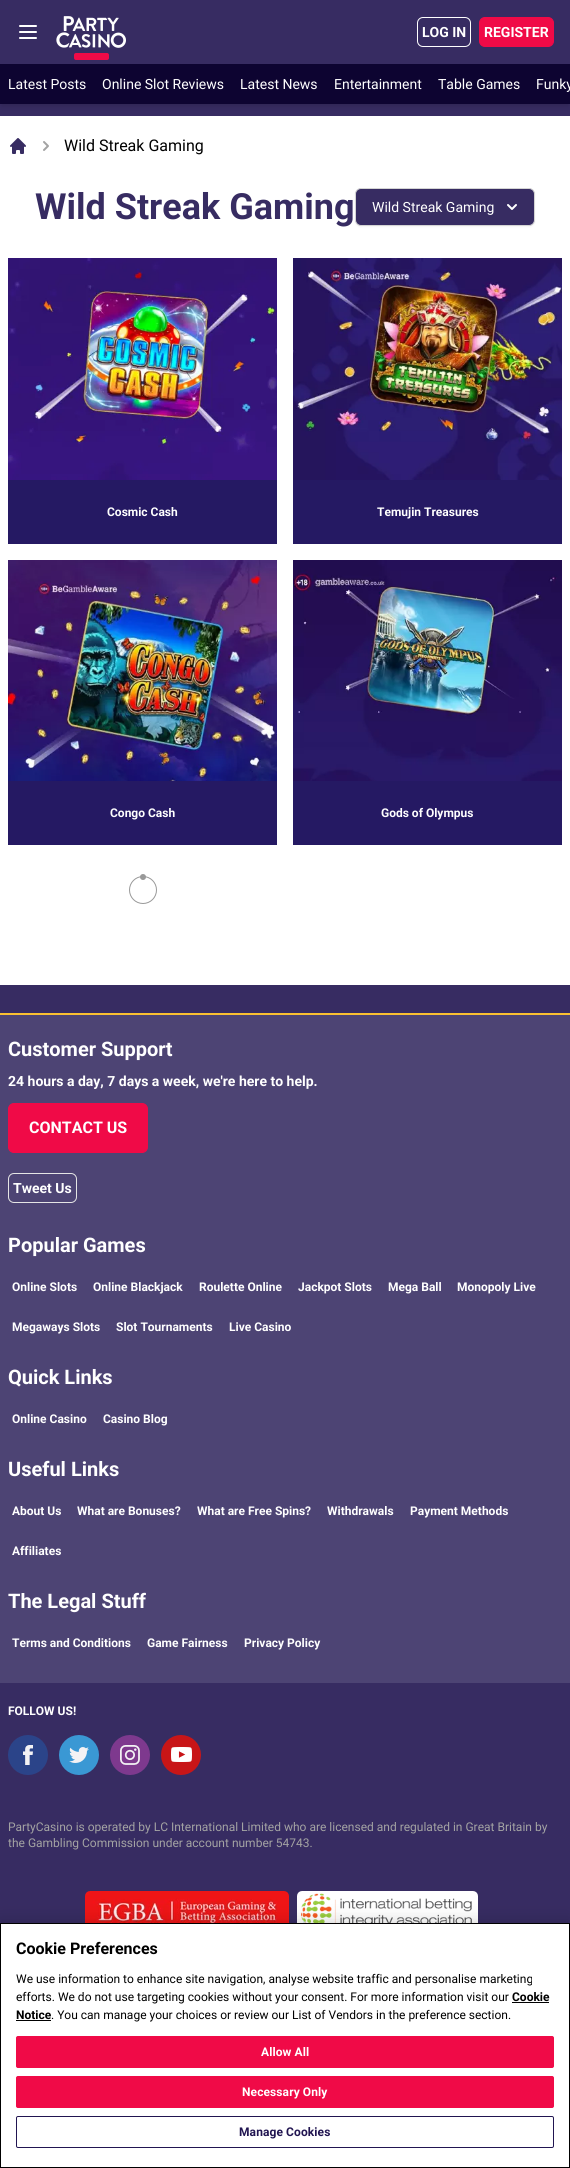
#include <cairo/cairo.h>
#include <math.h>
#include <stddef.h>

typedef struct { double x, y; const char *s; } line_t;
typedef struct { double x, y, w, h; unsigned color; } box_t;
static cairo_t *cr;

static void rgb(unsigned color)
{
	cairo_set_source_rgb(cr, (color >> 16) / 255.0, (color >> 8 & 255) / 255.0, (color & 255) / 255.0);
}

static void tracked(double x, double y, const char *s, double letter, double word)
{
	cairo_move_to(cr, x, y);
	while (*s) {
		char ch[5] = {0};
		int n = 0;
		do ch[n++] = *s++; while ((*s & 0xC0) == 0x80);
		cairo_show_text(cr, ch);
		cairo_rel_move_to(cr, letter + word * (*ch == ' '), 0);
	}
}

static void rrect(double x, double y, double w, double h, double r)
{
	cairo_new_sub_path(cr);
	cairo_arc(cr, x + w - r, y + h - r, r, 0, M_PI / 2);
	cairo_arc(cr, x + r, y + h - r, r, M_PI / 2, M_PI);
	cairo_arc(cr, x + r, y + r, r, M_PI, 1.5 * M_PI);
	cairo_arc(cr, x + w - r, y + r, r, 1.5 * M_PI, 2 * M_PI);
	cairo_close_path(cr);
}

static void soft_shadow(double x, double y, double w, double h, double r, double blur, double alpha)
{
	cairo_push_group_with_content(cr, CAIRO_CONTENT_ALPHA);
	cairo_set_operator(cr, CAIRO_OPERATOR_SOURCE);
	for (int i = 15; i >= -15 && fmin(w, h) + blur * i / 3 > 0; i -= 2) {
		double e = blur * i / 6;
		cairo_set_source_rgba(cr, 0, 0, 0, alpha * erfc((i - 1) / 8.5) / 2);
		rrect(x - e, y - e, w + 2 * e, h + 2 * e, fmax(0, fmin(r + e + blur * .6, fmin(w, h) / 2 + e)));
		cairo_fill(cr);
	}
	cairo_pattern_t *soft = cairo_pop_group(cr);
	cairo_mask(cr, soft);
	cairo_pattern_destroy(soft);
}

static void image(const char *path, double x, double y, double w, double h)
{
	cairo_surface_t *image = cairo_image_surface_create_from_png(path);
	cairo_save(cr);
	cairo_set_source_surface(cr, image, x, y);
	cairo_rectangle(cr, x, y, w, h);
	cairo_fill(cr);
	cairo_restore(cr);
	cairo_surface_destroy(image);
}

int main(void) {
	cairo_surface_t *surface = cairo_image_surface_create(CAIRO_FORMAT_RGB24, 570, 2168);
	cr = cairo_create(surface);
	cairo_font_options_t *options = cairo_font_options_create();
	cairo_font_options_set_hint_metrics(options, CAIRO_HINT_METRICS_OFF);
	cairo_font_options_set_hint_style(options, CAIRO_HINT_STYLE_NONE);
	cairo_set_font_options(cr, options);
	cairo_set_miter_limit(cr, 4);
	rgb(0xffffff);
	cairo_paint(cr);
	rgb(0x372c62);
	cairo_rectangle(cr, 0, 104, 570, 12);
	cairo_fill(cr);
	rgb(0x000000);
	soft_shadow(2, 4, 566, 100, 0, 2, 0.1);
	soft_shadow(1, 5, 568, 102, 0, 3, 0.1);
	rgb(0x372c62);
	cairo_rectangle(cr, 0, 0, 570, 64);
	cairo_fill(cr);
	cairo_new_path(cr);
	cairo_move_to(cr, 20, 26);
	cairo_line_to(cr, 36, 26);
	cairo_move_to(cr, 20, 32);
	cairo_line_to(cr, 36, 32);
	cairo_move_to(cr, 20, 38);
	cairo_line_to(cr, 36, 38);
	rgb(0xffffff);
	cairo_set_line_cap(cr, CAIRO_LINE_CAP_ROUND);
	cairo_set_line_join(cr, CAIRO_LINE_JOIN_ROUND);
	cairo_stroke(cr);
	image("img/1.png", 56, 16, 70, 32);
	rgb(0xf00a47);
	rrect(74, 53, 35, 7, 2);
	cairo_fill(cr);
	rrect(417.5, 17.5, 53, 29, 5.5);
	rgb(0xffffff);
	cairo_set_line_width(cr, 1);
	cairo_set_line_cap(cr, CAIRO_LINE_CAP_BUTT);
	cairo_set_line_join(cr, CAIRO_LINE_JOIN_MITER);
	cairo_stroke(cr);
	rgb(0xf00a47);
	rrect(479.5, 17.5, 74, 29, 5.5);
	cairo_fill_preserve(cr);
	cairo_stroke(cr);
	rgb(0x0d0431);
	cairo_rectangle(cr, 0, 64, 570, 40);
	cairo_fill(cr);
	image("img/2.png", 10, 138, 16, 16);
	image("img/3.png", 43, 141, 6, 10);
	rgb(0x000000);
	soft_shadow(355, 189, 180, 38, 6, 1, 0.05);
	rgb(0x372c62);
	rrect(355.5, 188.5, 179, 37, 5.5);
	cairo_fill_preserve(cr);
	rgb(0xd4d4d4);
	cairo_stroke(cr);
	image("img/4.png", 507, 204, 10, 6);
	image("img/5.png", 8, 258, 269, 222);
	rgb(0x251963);
	cairo_rectangle(cr, 8, 480, 269, 64);
	cairo_fill(cr);
	image("img/6.png", 293, 258, 269, 222);
	cairo_rectangle(cr, 293, 480, 269, 64);
	cairo_fill(cr);
	image("img/7.png", 8, 560, 269, 221);
	cairo_rectangle(cr, 8, 781, 269, 64);
	cairo_fill(cr);
	image("img/8.png", 293, 560, 269, 221);
	cairo_rectangle(cr, 293, 781, 269, 64);
	cairo_fill(cr);
	cairo_arc(cr, 143, 890, 13.5, 0, 2 * M_PI);
	rgb(0x999999);
	cairo_stroke(cr);
	cairo_arc(cr, 143, 877, 3, 0, 2 * M_PI);
	cairo_fill(cr);
	{
		static const box_t items[] = {
			{0, 985, 570, 938, 0x372c62},
			{0, 1015, 570, 668, 0x4d4474},
			{0, 1013, 570, 2, 0xfac031},
		};
		for (size_t i = 0; i < sizeof items / sizeof *items; i++) {
			rgb(items[i].color);
			cairo_rectangle(cr, items[i].x, items[i].y, items[i].w, items[i].h);
			cairo_fill(cr);
		}
	}
	rgb(0xf00a47);
	rrect(8.5, 1103.5, 139, 49, 5.5);
	cairo_fill_preserve(cr);
	cairo_stroke(cr);
	rrect(8.5, 1173.5, 68, 29, 5.5);
	rgb(0xe5e5e5);
	cairo_stroke(cr);
	image("img/9.png", 8, 1735, 40, 40);
	image("img/10.png", 59, 1735, 40, 40);
	image("img/11.png", 110, 1735, 40, 40);
	image("img/12.png", 161, 1735, 40, 40);
	image("img/13.png", 85, 1891, 204, 32);
	image("img/14.png", 297, 1891, 181, 32);
	rgb(0x000000);
	soft_shadow(0, 1923, 570, 245, 0, 9, 0.2);
	rgb(0xffffff);
	cairo_rectangle(cr, 1, 1924, 568, 243);
	cairo_fill(cr);
	cairo_save(cr);
	cairo_rectangle(cr, 0, 1923, 570, 245);
	cairo_clip(cr);
	rgb(0x000000);
	cairo_set_fill_rule(cr, CAIRO_FILL_RULE_EVEN_ODD);
	cairo_new_path(cr);
	cairo_move_to(cr, -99, 1824);
	cairo_line_to(cr, 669, 1824);
	cairo_line_to(cr, 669, 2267);
	cairo_line_to(cr, -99, 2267);
	cairo_close_path(cr);
	cairo_move_to(cr, -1, 1922);
	cairo_line_to(cr, 569, 1922);
	cairo_line_to(cr, 569, 2167);
	cairo_line_to(cr, -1, 2167);
	cairo_close_path(cr);
	cairo_fill(cr);
	cairo_new_path(cr);
	cairo_move_to(cr, -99, 1824);
	cairo_line_to(cr, 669, 1824);
	cairo_line_to(cr, 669, 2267);
	cairo_line_to(cr, -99, 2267);
	cairo_close_path(cr);
	cairo_move_to(cr, 1, 1924);
	cairo_line_to(cr, 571, 1924);
	cairo_line_to(cr, 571, 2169);
	cairo_line_to(cr, 1, 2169);
	cairo_close_path(cr);
	cairo_fill(cr);
	cairo_restore(cr);
	rgb(0x000000);
	cairo_rectangle(cr, 512, 2002, 37, 1);
	cairo_fill(cr);
	cairo_rectangle(cr, 16, 2020, 35, 1);
	cairo_fill(cr);
	rgb(0xf00a47);
	rrect(16.5, 2036.5, 537, 31, 1.5);
	cairo_fill_preserve(cr);
	cairo_stroke(cr);
	rrect(16.5, 2076.5, 537, 31, 1.5);
	cairo_fill_preserve(cr);
	cairo_stroke(cr);
	rrect(16.5, 2116.5, 537, 31, 1.5);
	rgb(0x211551);
	cairo_stroke(cr);
	cairo_select_font_face(cr, "Roboto", CAIRO_FONT_SLANT_NORMAL, CAIRO_FONT_WEIGHT_BOLD);
	cairo_set_font_size(cr, 14);
	rgb(0xffffff);
	cairo_move_to(cr, 422, 37);
	cairo_show_text(cr, "LOG IN");
	cairo_move_to(cr, 484, 37);
	cairo_show_text(cr, "REGISTER");
	cairo_select_font_face(cr, "Roboto", CAIRO_FONT_SLANT_NORMAL, CAIRO_FONT_WEIGHT_NORMAL);
	{
		static const line_t items[] = {
			{8, 89, "Latest Posts"},
			{102, 89, "Online Slot Reviews"},
			{240, 89, "Latest News"},
			{334, 89, "Entertainment"},
			{438, 89, "Table Games"},
			{536, 89, "Funky"},
		};
		for (size_t i = 0; i < sizeof items / sizeof *items; i++) {
			cairo_move_to(cr, items[i].x, items[i].y);
			cairo_show_text(cr, items[i].s);
		}
	}
	cairo_set_font_size(cr, 16);
	rgb(0x000000);
	cairo_move_to(cr, 64, 151);
	cairo_show_text(cr, "Wild Streak Gaming");
	cairo_select_font_face(cr, "Roboto", CAIRO_FONT_SLANT_NORMAL, CAIRO_FONT_WEIGHT_BOLD);
	cairo_set_font_size(cr, 36);
	rgb(0x372c62);
	cairo_move_to(cr, 35, 219);
	cairo_show_text(cr, "Wild Streak Gaming");
	cairo_select_font_face(cr, "Roboto", CAIRO_FONT_SLANT_NORMAL, CAIRO_FONT_WEIGHT_NORMAL);
	cairo_set_font_size(cr, 14);
	rgb(0xffffff);
	cairo_move_to(cr, 372, 212);
	cairo_show_text(cr, "Wild Streak Gaming");
	cairo_select_font_face(cr, "Roboto", CAIRO_FONT_SLANT_NORMAL, CAIRO_FONT_WEIGHT_BOLD);
	cairo_set_font_size(cr, 12);
	{
		static const line_t items[] = {
			{107, 516, "Cosmic Cash"},
			{377, 516, "Temujin Treasures"},
			{110, 817, "Congo Cash"},
			{381, 817, "Gods of Olympus"},
		};
		for (size_t i = 0; i < sizeof items / sizeof *items; i++) {
			cairo_move_to(cr, items[i].x, items[i].y);
			cairo_show_text(cr, items[i].s);
		}
	}
	cairo_set_font_size(cr, 20);
	cairo_move_to(cr, 8, 1056);
	cairo_show_text(cr, "Customer Support");
	cairo_set_font_size(cr, 14);
	cairo_move_to(cr, 8, 1086);
	cairo_show_text(cr, "24 hours a day, 7 days a week, we're here to help.");
	cairo_set_font_size(cr, 16);
	cairo_move_to(cr, 29, 1133);
	cairo_show_text(cr, "CONTACT US");
	cairo_set_font_size(cr, 14);
	cairo_move_to(cr, 13, 1193);
	cairo_show_text(cr, "Tweet Us");
	cairo_set_font_size(cr, 20);
	cairo_move_to(cr, 8, 1252);
	cairo_show_text(cr, "Popular Games");
	cairo_set_font_size(cr, 12);
	{
		static const line_t items[] = {
			{12, 1291, "Online Slots"},
			{93, 1291, "Online Blackjack"},
			{199, 1291, "Roulette Online"},
			{298, 1291, "Jackpot Slots"},
			{388, 1291, "Mega Ball"},
			{457, 1291, "Monopoly Live"},
			{12, 1331, "Megaways Slots"},
			{116, 1331, "Slot Tournaments"},
			{229, 1331, "Live Casino"},
		};
		for (size_t i = 0; i < sizeof items / sizeof *items; i++) {
			cairo_move_to(cr, items[i].x, items[i].y);
			cairo_show_text(cr, items[i].s);
		}
	}
	cairo_set_font_size(cr, 20);
	cairo_move_to(cr, 8, 1384);
	cairo_show_text(cr, "Quick Links");
	cairo_set_font_size(cr, 12);
	cairo_move_to(cr, 12, 1423);
	cairo_show_text(cr, "Online Casino");
	cairo_move_to(cr, 103, 1423);
	cairo_show_text(cr, "Casino Blog");
	cairo_set_font_size(cr, 20);
	cairo_move_to(cr, 8, 1476);
	cairo_show_text(cr, "Useful Links");
	cairo_set_font_size(cr, 12);
	{
		static const line_t items[] = {
			{12, 1515, "About Us"},
			{77, 1515, "What are Bonuses?"},
			{197, 1515, "What are Free Spins?"},
			{327, 1515, "Withdrawals"},
			{410, 1515, "Payment Methods"},
			{12, 1555, "Affiliates"},
		};
		for (size_t i = 0; i < sizeof items / sizeof *items; i++) {
			cairo_move_to(cr, items[i].x, items[i].y);
			cairo_show_text(cr, items[i].s);
		}
	}
	cairo_set_font_size(cr, 20);
	cairo_move_to(cr, 8, 1608);
	cairo_show_text(cr, "The Legal Stuff");
	cairo_set_font_size(cr, 12);
	{
		static const line_t items[] = {
			{12, 1647, "Terms and Conditions"},
			{147, 1647, "Game Fairness"},
			{244, 1647, "Privacy Policy"},
			{8, 1715, "FOLLOW US!"},
		};
		for (size_t i = 0; i < sizeof items / sizeof *items; i++) {
			cairo_move_to(cr, items[i].x, items[i].y);
			cairo_show_text(cr, items[i].s);
		}
	}
	cairo_select_font_face(cr, "Roboto", CAIRO_FONT_SLANT_NORMAL, CAIRO_FONT_WEIGHT_NORMAL);
	rgb(0xa3a3a3);
	cairo_move_to(cr, 8, 1831);
	cairo_show_text(cr, "PartyCasino is operated by LC International Limited who are licensed and regulated in Great Britain by");
	cairo_move_to(cr, 8, 1847);
	cairo_show_text(cr, "the Gambling Commission under account number 54743.");
	cairo_select_font_face(cr, "Roboto", CAIRO_FONT_SLANT_NORMAL, CAIRO_FONT_WEIGHT_BOLD);
	cairo_set_font_size(cr, 16);
	rgb(0x000000);
	cairo_move_to(cr, 16, 1954);
	cairo_show_text(cr, "Cookie Preferences");
	cairo_select_font_face(cr, "Roboto", CAIRO_FONT_SLANT_NORMAL, CAIRO_FONT_WEIGHT_NORMAL);
	cairo_set_font_size(cr, 12);
	cairo_move_to(cr, 16, 1983);
	cairo_show_text(cr, "We use information to enhance site navigation, analyse website traffic and personalise marketing");
	cairo_move_to(cr, 16, 2001);
	cairo_show_text(cr, "efforts. We do not use targeting cookies without your consent. For more information visit our");
	cairo_select_font_face(cr, "Roboto", CAIRO_FONT_SLANT_NORMAL, CAIRO_FONT_WEIGHT_BOLD);
	cairo_move_to(cr, 512, 2001);
	cairo_show_text(cr, "Cookie");
	cairo_move_to(cr, 16, 2019);
	cairo_show_text(cr, "Notice");
	cairo_select_font_face(cr, "Roboto", CAIRO_FONT_SLANT_NORMAL, CAIRO_FONT_WEIGHT_NORMAL);
	cairo_move_to(cr, 51, 2019);
	cairo_show_text(cr, ". You can manage your choices or review our List of Vendors in the preference section.");
	cairo_select_font_face(cr, "Roboto", CAIRO_FONT_SLANT_NORMAL, CAIRO_FONT_WEIGHT_BOLD);
	rgb(0xffffff);
	tracked(261, 2056, "Allow All", 0.1, 0);
	tracked(242, 2096, "Necessary Only", 0.1, 0);
	rgb(0x211551);
	tracked(239, 2136, "Manage Cookies", 0.1, 0);
	cairo_surface_write_to_png(surface, "page.png");
	cairo_font_options_destroy(options);
	cairo_destroy(cr);
	cairo_surface_destroy(surface);
	return 0;
}
